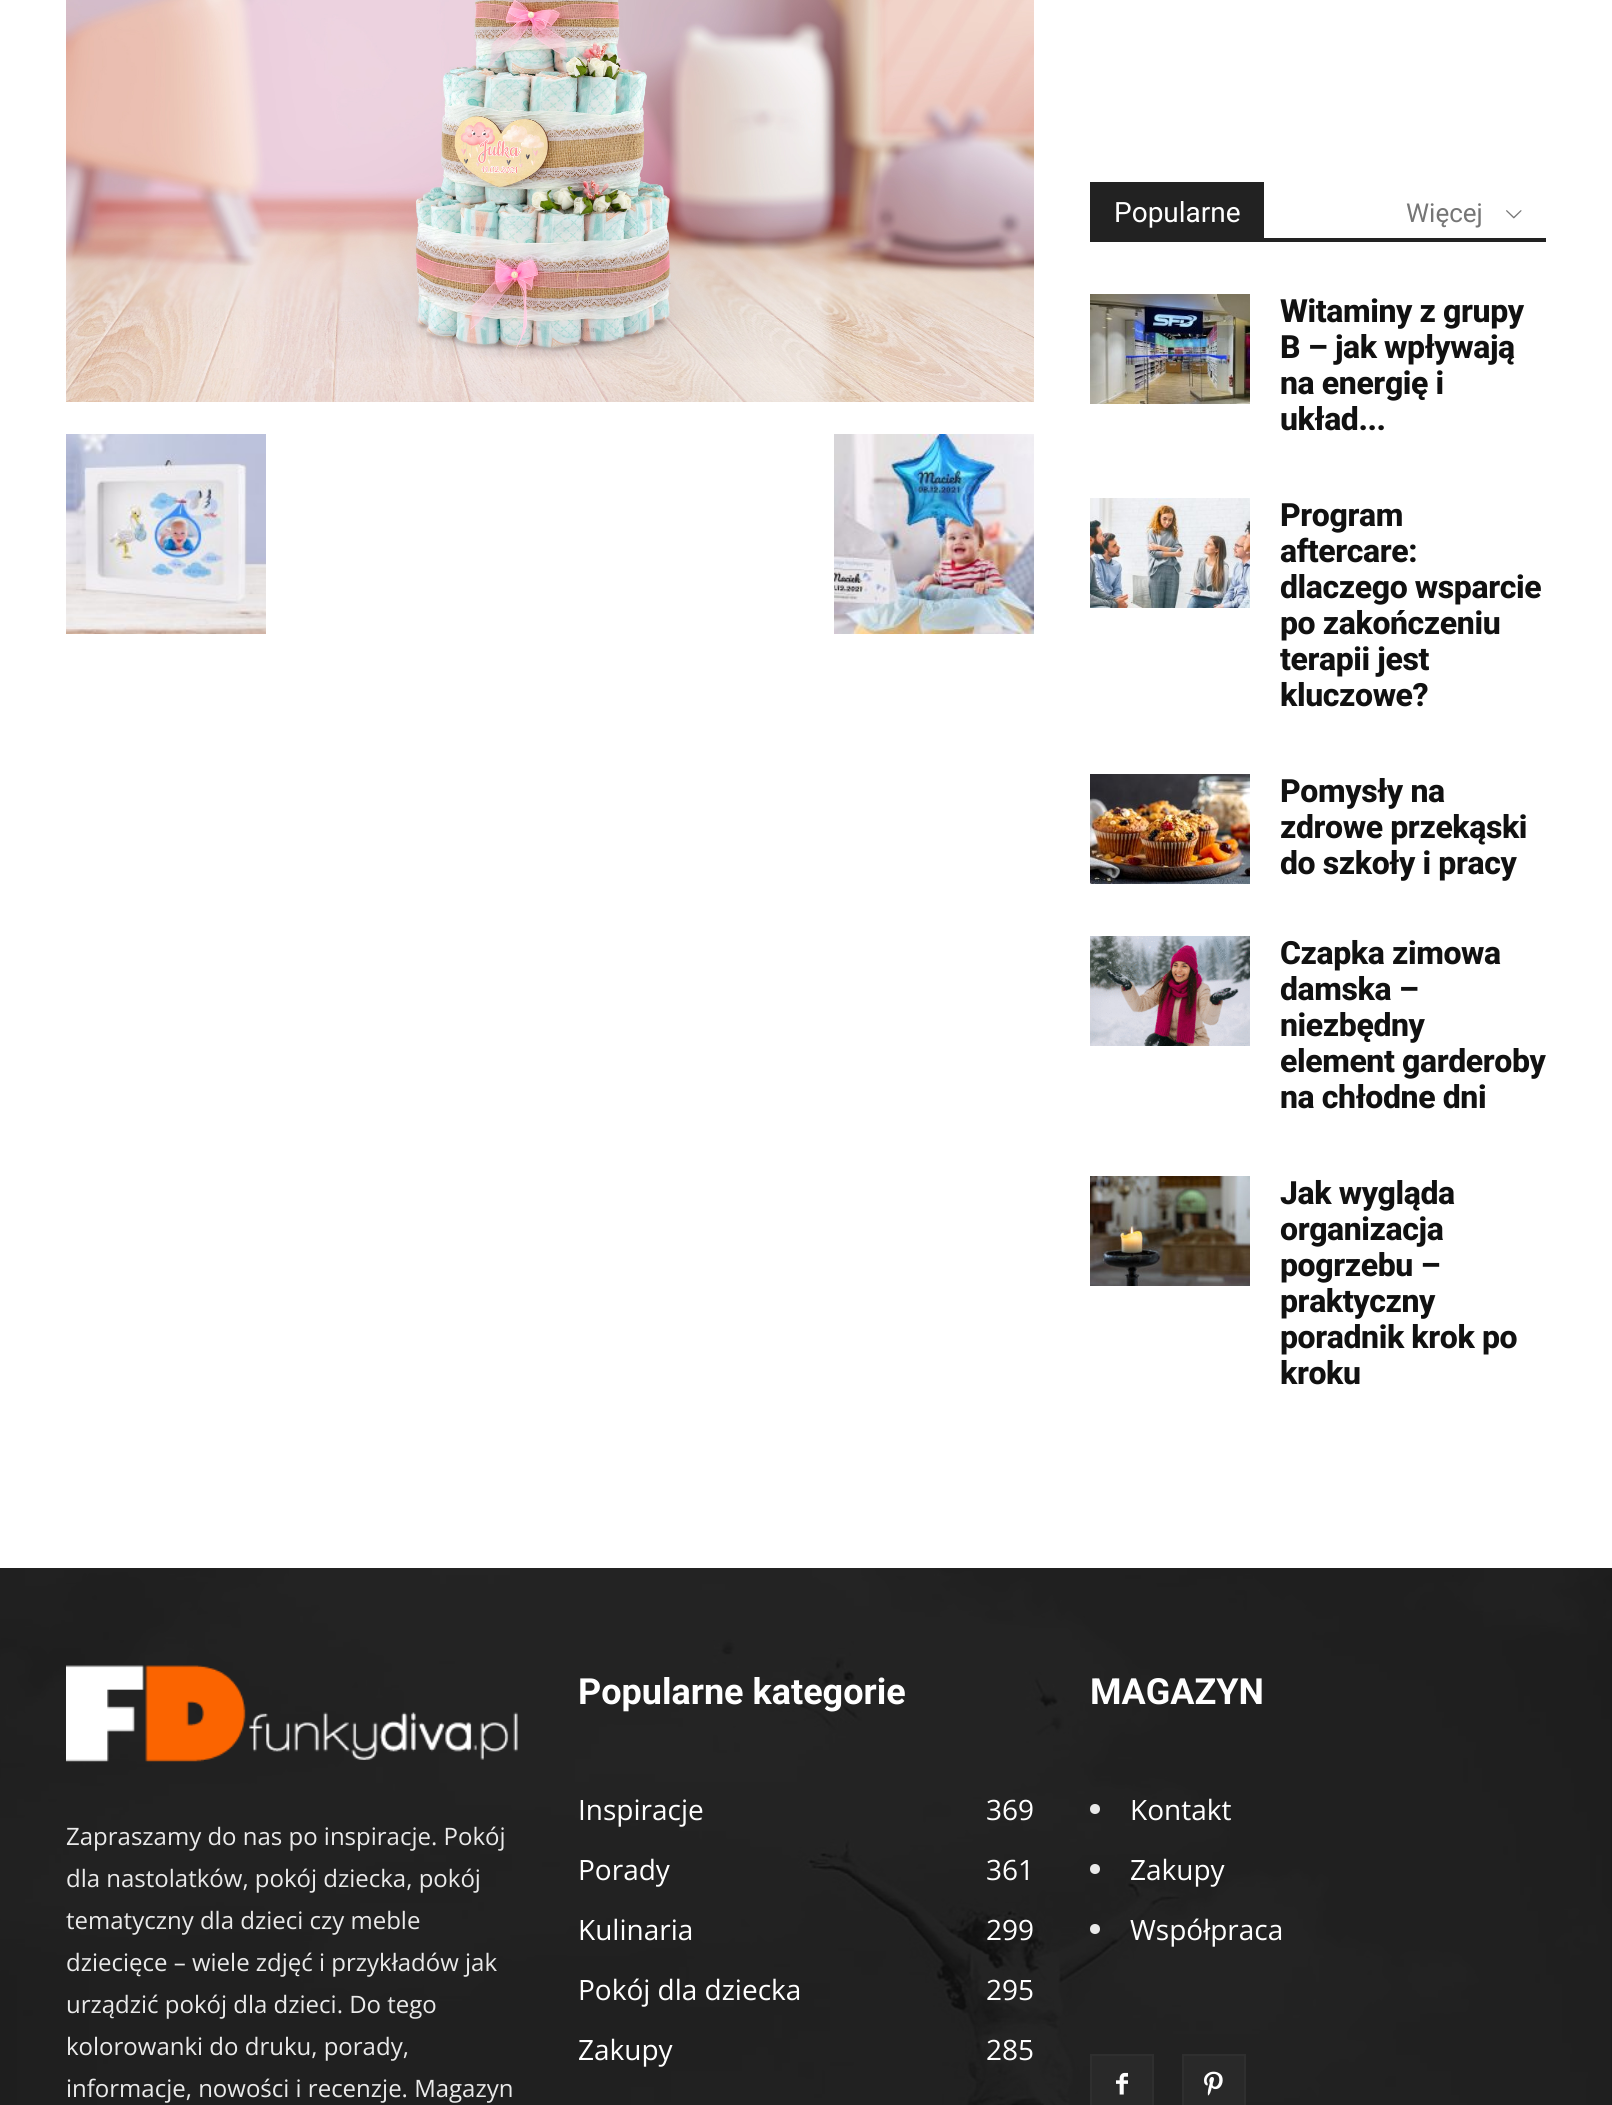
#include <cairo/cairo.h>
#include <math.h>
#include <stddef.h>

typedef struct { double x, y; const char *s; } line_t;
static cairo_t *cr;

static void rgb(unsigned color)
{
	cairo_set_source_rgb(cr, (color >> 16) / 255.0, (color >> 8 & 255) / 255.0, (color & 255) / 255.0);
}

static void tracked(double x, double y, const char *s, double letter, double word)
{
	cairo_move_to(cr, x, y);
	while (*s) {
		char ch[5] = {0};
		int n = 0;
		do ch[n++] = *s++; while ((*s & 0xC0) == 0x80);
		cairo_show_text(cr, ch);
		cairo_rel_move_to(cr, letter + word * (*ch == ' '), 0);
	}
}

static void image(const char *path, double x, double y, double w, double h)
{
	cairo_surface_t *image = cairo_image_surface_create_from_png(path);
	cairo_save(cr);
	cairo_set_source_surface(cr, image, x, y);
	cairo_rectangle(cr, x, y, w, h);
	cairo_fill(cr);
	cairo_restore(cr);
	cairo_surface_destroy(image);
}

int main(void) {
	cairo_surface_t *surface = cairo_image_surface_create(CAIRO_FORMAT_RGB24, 1612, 2105);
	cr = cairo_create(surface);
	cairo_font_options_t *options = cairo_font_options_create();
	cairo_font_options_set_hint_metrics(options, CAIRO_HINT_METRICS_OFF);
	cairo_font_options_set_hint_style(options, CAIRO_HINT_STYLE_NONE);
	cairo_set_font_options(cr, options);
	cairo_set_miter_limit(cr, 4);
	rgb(0xffffff);
	cairo_paint(cr);
	image("img/1.png", 66, 0, 968, 402);
	image("img/2.png", 66, 434, 200, 200);
	image("img/3.png", 834, 434, 200, 200);
	rgb(0x222222);
	cairo_rectangle(cr, 1090, 238, 456, 4);
	cairo_fill(cr);
	cairo_rectangle(cr, 1090, 182, 174, 56);
	cairo_fill(cr);
	image("img/4.png", 1506, 210, 16, 9);
	image("img/5.png", 1090, 294, 160, 110);
	image("img/6.png", 1090, 498, 160, 110);
	image("img/7.png", 1090, 774, 160, 110);
	image("img/8.png", 1090, 936, 160, 110);
	image("img/9.png", 1090, 1176, 160, 110);
	rgb(0x111111);
	cairo_rectangle(cr, 0, 1568, 1612, 537);
	cairo_fill(cr);
	image("img/10.png", 0, 1568, 1612, 537);
	image("img/11.png", 66, 1665, 452, 97);
	rgb(0xeaeaea);
	cairo_arc(cr, 1095, 1809, 5, 0, 2 * M_PI);
	cairo_fill(cr);
	cairo_arc(cr, 1095, 1869, 5, 0, 2 * M_PI);
	cairo_fill(cr);
	cairo_arc(cr, 1095, 1929, 5, 0, 2 * M_PI);
	cairo_fill(cr);
	rgb(0x292929);
	cairo_rectangle(cr, 1092, 2056, 60, 49);
	cairo_fill(cr);
	image("img/12.png", 1116, 2072, 12, 23);
	cairo_rectangle(cr, 1091, 2055, 62, 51);
	rgb(0x2f2f2f);
	cairo_stroke(cr);
	rgb(0x292929);
	cairo_rectangle(cr, 1184, 2056, 60, 49);
	cairo_fill(cr);
	image("img/13.png", 1204, 2071, 19, 25);
	cairo_rectangle(cr, 1183, 2055, 62, 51);
	rgb(0x2f2f2f);
	cairo_stroke(cr);
	cairo_select_font_face(cr, "Roboto", CAIRO_FONT_SLANT_NORMAL, CAIRO_FONT_WEIGHT_NORMAL);
	cairo_set_font_size(cr, 28);
	rgb(0xffffff);
	cairo_move_to(cr, 1114, 222);
	cairo_show_text(cr, "Popularne");
	cairo_set_font_size(cr, 26);
	rgb(0x767676);
	cairo_move_to(cr, 1406, 222);
	cairo_show_text(cr, "Więcej");
	cairo_select_font_face(cr, "Roboto ExtraBold", CAIRO_FONT_SLANT_NORMAL, CAIRO_FONT_WEIGHT_NORMAL);
	cairo_set_font_size(cr, 32);
	rgb(0x111111);
	{
		static const line_t items[] = {
			{1280, 322, "Witaminy z grupy"},
			{1280, 358, "B – jak wpływają"},
			{1280, 394, "na energię i"},
			{1280, 430, "układ..."},
			{1280, 526, "Program"},
			{1280, 562, "aftercare:"},
			{1280, 598, "dlaczego wsparcie"},
			{1280, 634, "po zakończeniu"},
			{1280, 670, "terapii jest"},
			{1280, 706, "kluczowe?"},
			{1280, 802, "Pomysły na"},
			{1280, 838, "zdrowe przekąski"},
			{1280, 874, "do szkoły i pracy"},
			{1280, 964, "Czapka zimowa"},
			{1280, 1000, "damska –"},
			{1280, 1036, "niezbędny"},
			{1280, 1072, "element garderoby"},
			{1280, 1108, "na chłodne dni"},
			{1280, 1204, "Jak wygląda"},
			{1280, 1240, "organizacja"},
			{1280, 1276, "pogrzebu –"},
			{1280, 1312, "praktyczny"},
			{1280, 1348, "poradnik krok po"},
			{1280, 1384, "kroku"},
		};
		for (size_t i = 0; i < sizeof items / sizeof *items; i++) {
			tracked(items[i].x, items[i].y, items[i].s, -0.4, 0);
		}
	}
	cairo_select_font_face(cr, "Open Sans", CAIRO_FONT_SLANT_NORMAL, CAIRO_FONT_WEIGHT_NORMAL);
	cairo_set_font_size(cr, 24);
	rgb(0xeaeaea);
	{
		static const line_t items[] = {
			{66, 1845, "Zapraszamy do nas po inspiracje. Pokój"},
			{66, 1887, "dla nastolatków, pokój dziecka, pokój"},
			{66, 1929, "tematyczny dla dzieci czy meble"},
			{66, 1971, "dziecięce – wiele zdjęć i przykładów jak"},
			{66, 2013, "urządzić pokój dla dzieci. Do tego"},
			{66, 2055, "kolorowanki do druku, porady,"},
			{66, 2097, "informacje, nowości i recenzje. Magazyn"},
		};
		for (size_t i = 0; i < sizeof items / sizeof *items; i++) {
			cairo_move_to(cr, items[i].x, items[i].y);
			cairo_show_text(cr, items[i].s);
		}
	}
	cairo_select_font_face(cr, "Roboto", CAIRO_FONT_SLANT_NORMAL, CAIRO_FONT_WEIGHT_BOLD);
	cairo_set_font_size(cr, 36);
	rgb(0xffffff);
	cairo_move_to(cr, 578, 1704);
	cairo_show_text(cr, "Popularne kategorie");
	cairo_select_font_face(cr, "Open Sans", CAIRO_FONT_SLANT_NORMAL, CAIRO_FONT_WEIGHT_NORMAL);
	cairo_set_font_size(cr, 28);
	{
		static const line_t items[] = {
			{578, 1820, "Inspiracje"},
			{986, 1820, "369"},
			{578, 1880, "Porady"},
			{986, 1880, "361"},
			{578, 1940, "Kulinaria"},
			{986, 1940, "299"},
			{578, 2000, "Pokój dla dziecka"},
			{986, 2000, "295"},
			{578, 2060, "Zakupy"},
			{986, 2060, "285"},
		};
		for (size_t i = 0; i < sizeof items / sizeof *items; i++) {
			cairo_move_to(cr, items[i].x, items[i].y);
			cairo_show_text(cr, items[i].s);
		}
	}
	cairo_select_font_face(cr, "Roboto", CAIRO_FONT_SLANT_NORMAL, CAIRO_FONT_WEIGHT_BOLD);
	cairo_set_font_size(cr, 36);
	cairo_move_to(cr, 1090, 1704);
	cairo_show_text(cr, "MAGAZYN");
	cairo_select_font_face(cr, "Open Sans", CAIRO_FONT_SLANT_NORMAL, CAIRO_FONT_WEIGHT_NORMAL);
	cairo_set_font_size(cr, 28);
	{
		static const line_t items[] = {
			{1130, 1820, "Kontakt"},
			{1130, 1880, "Zakupy"},
			{1130, 1940, "Współpraca"},
		};
		for (size_t i = 0; i < sizeof items / sizeof *items; i++) {
			cairo_move_to(cr, items[i].x, items[i].y);
			cairo_show_text(cr, items[i].s);
		}
	}
	cairo_surface_write_to_png(surface, "page.png");
	cairo_font_options_destroy(options);
	cairo_destroy(cr);
	cairo_surface_destroy(surface);
	return 0;
}
